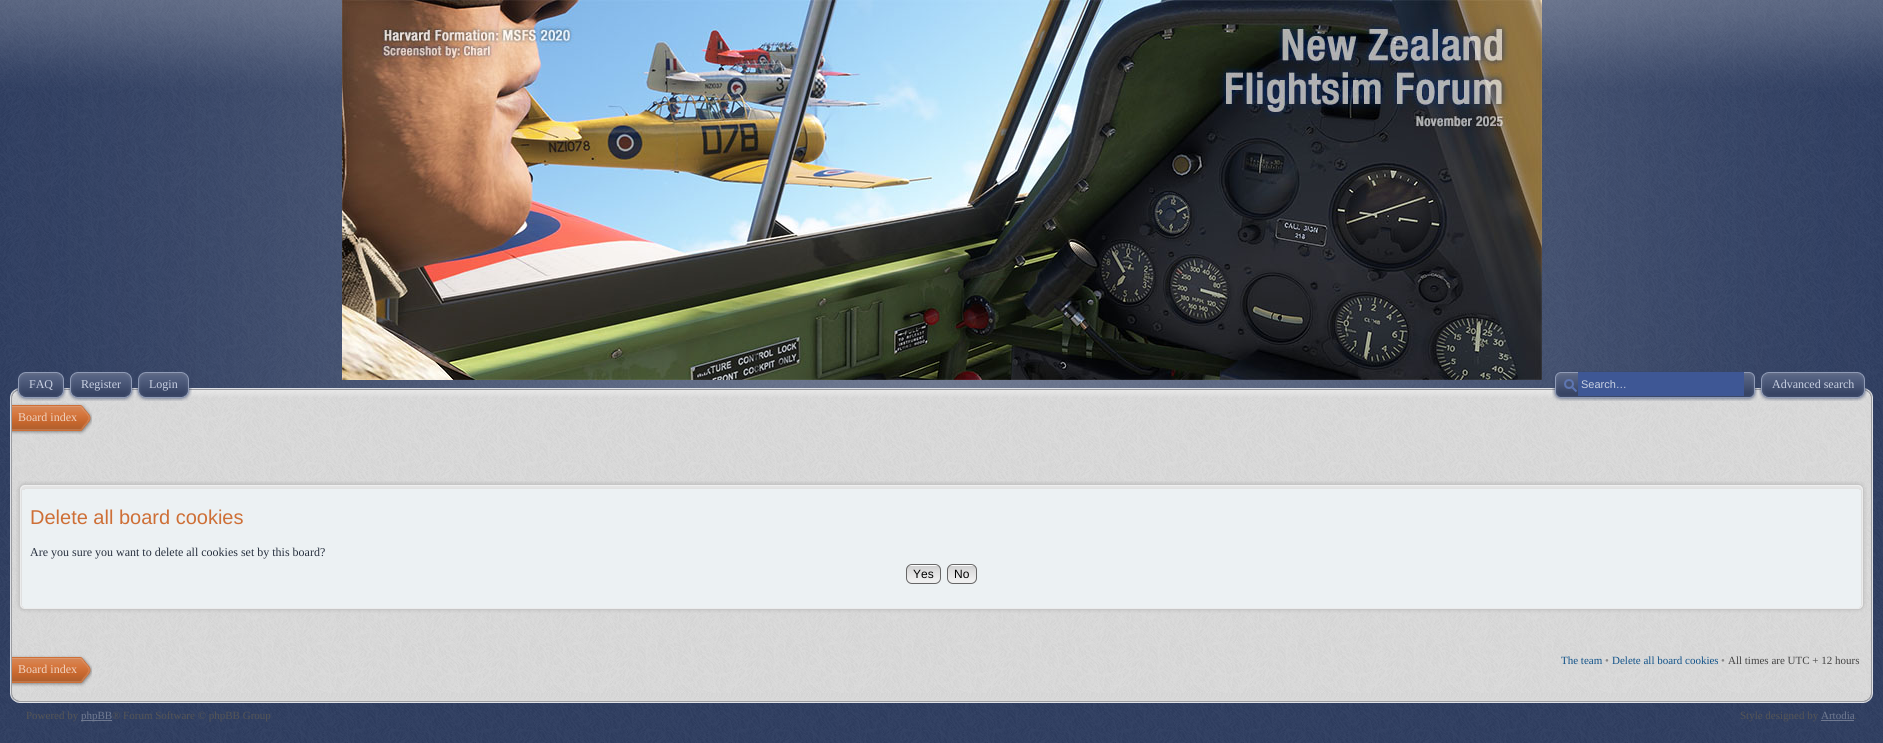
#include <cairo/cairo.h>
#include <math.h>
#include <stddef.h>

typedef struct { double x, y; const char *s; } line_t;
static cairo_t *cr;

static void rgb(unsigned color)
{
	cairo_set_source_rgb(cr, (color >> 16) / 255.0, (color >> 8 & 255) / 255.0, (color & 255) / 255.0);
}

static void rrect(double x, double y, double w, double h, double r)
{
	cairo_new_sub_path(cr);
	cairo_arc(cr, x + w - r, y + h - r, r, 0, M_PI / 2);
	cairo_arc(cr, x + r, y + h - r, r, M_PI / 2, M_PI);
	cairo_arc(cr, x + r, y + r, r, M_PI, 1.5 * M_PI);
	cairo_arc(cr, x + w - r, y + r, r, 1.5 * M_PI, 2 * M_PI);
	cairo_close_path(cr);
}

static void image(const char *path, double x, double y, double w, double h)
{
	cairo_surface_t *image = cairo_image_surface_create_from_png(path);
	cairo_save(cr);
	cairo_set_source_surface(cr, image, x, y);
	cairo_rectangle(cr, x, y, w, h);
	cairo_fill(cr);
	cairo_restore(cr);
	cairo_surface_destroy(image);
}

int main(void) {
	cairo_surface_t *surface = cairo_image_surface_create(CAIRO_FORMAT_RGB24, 1883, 743);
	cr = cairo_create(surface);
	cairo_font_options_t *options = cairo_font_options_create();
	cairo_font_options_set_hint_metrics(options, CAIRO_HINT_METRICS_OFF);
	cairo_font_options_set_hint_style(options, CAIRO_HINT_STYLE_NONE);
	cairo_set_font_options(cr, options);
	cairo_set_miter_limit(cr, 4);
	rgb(0xffffff);
	cairo_paint(cr);
	image("img/1.png", 0, 0, 1883, 743);
	image("img/2.png", 0, 0, 1883, 388);
	image("img/3.png", 342, 0, 1200, 380);
	image("img/4.png", 10, 388, 1863, 13);
	image("img/5.png", 15, 372, 42, 29);
	image("img/6.png", 57, 372, 10, 29);
	image("img/7.png", 67, 372, 58, 29);
	image("img/8.png", 125, 372, 10, 29);
	image("img/9.png", 135, 372, 47, 29);
	image("img/10.png", 182, 372, 10, 29);
	image("img/11.png", 1552, 371, 206, 30);
	rgb(0x3e5795);
	cairo_rectangle(cr, 1578, 372, 166, 24);
	cairo_fill(cr);
	image("img/12.png", 1758, 371, 100, 30);
	image("img/13.png", 1858, 372, 10, 29);
	image("img/14.png", 10, 401, 1863, 292);
	image("img/15.png", 77, 403, 15, 32);
	image("img/16.png", 12, 403, 65, 32);
	rgb(0xecf1f3);
	cairo_rectangle(cr, 22, 489, 1839, 119);
	cairo_fill(cr);
	image("img/17.png", 16, 481, 1851, 132);
	image("img/18.png", 906, 564, 35, 20);
	rrect(906.5, 564.5, 34, 19, 5.5);
	rgb(0x666666);
	cairo_set_line_width(cr, 1);
	cairo_stroke(cr);
	image("img/19.png", 947, 564, 30, 20);
	rrect(947.5, 564.5, 29, 19, 5.5);
	cairo_stroke(cr);
	image("img/20.png", 77, 655, 15, 32);
	image("img/21.png", 12, 655, 65, 32);
	image("img/22.png", 10, 693, 1863, 10);
	cairo_set_source_rgba(cr, 1, 1, 1, 0.3);
	cairo_rectangle(cr, 81, 720, 31, 1);
	cairo_fill(cr);
	cairo_rectangle(cr, 1821, 720, 33, 1);
	cairo_fill(cr);
	cairo_select_font_face(cr, "Liberation Serif", CAIRO_FONT_SLANT_NORMAL, CAIRO_FONT_WEIGHT_NORMAL);
	cairo_set_font_size(cr, 12);
	rgb(0xc8d0e2);
	{
		static const line_t items[] = {
			{29, 388, "FAQ"},
			{81, 388, "Register"},
			{149, 388, "Login"},
		};
		for (size_t i = 0; i < sizeof items / sizeof *items; i++) {
			cairo_move_to(cr, items[i].x, items[i].y);
			cairo_show_text(cr, items[i].s);
		}
	}
	cairo_select_font_face(cr, "Liberation Sans", CAIRO_FONT_SLANT_NORMAL, CAIRO_FONT_WEIGHT_NORMAL);
	cairo_set_font_size(cr, 11);
	cairo_move_to(cr, 1581, 388);
	cairo_show_text(cr, "Search…");
	cairo_select_font_face(cr, "Liberation Serif", CAIRO_FONT_SLANT_NORMAL, CAIRO_FONT_WEIGHT_NORMAL);
	cairo_set_font_size(cr, 12);
	cairo_move_to(cr, 1772, 388);
	cairo_show_text(cr, "Advanced search");
	rgb(0xf0d4c3);
	cairo_move_to(cr, 18, 421);
	cairo_show_text(cr, "Board index");
	cairo_select_font_face(cr, "Liberation Sans", CAIRO_FONT_SLANT_NORMAL, CAIRO_FONT_WEIGHT_NORMAL);
	cairo_set_font_size(cr, 20);
	rgb(0xce6f36);
	cairo_move_to(cr, 30, 524);
	cairo_show_text(cr, "Delete all board cookies");
	cairo_select_font_face(cr, "Liberation Serif", CAIRO_FONT_SLANT_NORMAL, CAIRO_FONT_WEIGHT_NORMAL);
	cairo_set_font_size(cr, 12);
	rgb(0x28313f);
	cairo_move_to(cr, 30, 556);
	cairo_show_text(cr, "Are you sure you want to delete all cookies set by this board?");
	cairo_select_font_face(cr, "Liberation Sans", CAIRO_FONT_SLANT_NORMAL, CAIRO_FONT_WEIGHT_NORMAL);
	rgb(0x000000);
	cairo_move_to(cr, 913, 578);
	cairo_show_text(cr, "Yes");
	cairo_move_to(cr, 954, 578);
	cairo_show_text(cr, "No");
	cairo_select_font_face(cr, "Liberation Serif", CAIRO_FONT_SLANT_NORMAL, CAIRO_FONT_WEIGHT_NORMAL);
	cairo_set_font_size(cr, 11);
	rgb(0x105289);
	cairo_move_to(cr, 1561, 664);
	cairo_show_text(cr, "The team");
	rgb(0x888888);
	cairo_move_to(cr, 1605, 664);
	cairo_show_text(cr, "•");
	rgb(0x105289);
	cairo_move_to(cr, 1612, 664);
	cairo_show_text(cr, "Delete all board cookies");
	rgb(0x888888);
	cairo_move_to(cr, 1721, 664);
	cairo_show_text(cr, "•");
	rgb(0x444444);
	cairo_move_to(cr, 1728, 664);
	cairo_show_text(cr, "All times are UTC + 12 hours");
	cairo_set_font_size(cr, 12);
	rgb(0xf0d4c3);
	cairo_move_to(cr, 18, 673);
	cairo_show_text(cr, "Board index");
	cairo_set_font_size(cr, 11);
	rgb(0x555555);
	cairo_move_to(cr, 26, 719);
	cairo_show_text(cr, "Powered by");
	rgb(0x707a91);
	cairo_move_to(cr, 81, 719);
	cairo_show_text(cr, "phpBB");
	rgb(0x555555);
	cairo_move_to(cr, 112, 719);
	cairo_show_text(cr, "® Forum Software © phpBB Group");
	cairo_move_to(cr, 1740, 719);
	cairo_show_text(cr, "Style designed by");
	rgb(0x707a91);
	cairo_move_to(cr, 1821, 719);
	cairo_show_text(cr, "Artodia");
	rgb(0x555555);
	cairo_move_to(cr, 1854, 719);
	cairo_show_text(cr, ".");
	cairo_surface_write_to_png(surface, "page.png");
	cairo_font_options_destroy(options);
	cairo_destroy(cr);
	cairo_surface_destroy(surface);
	return 0;
}
